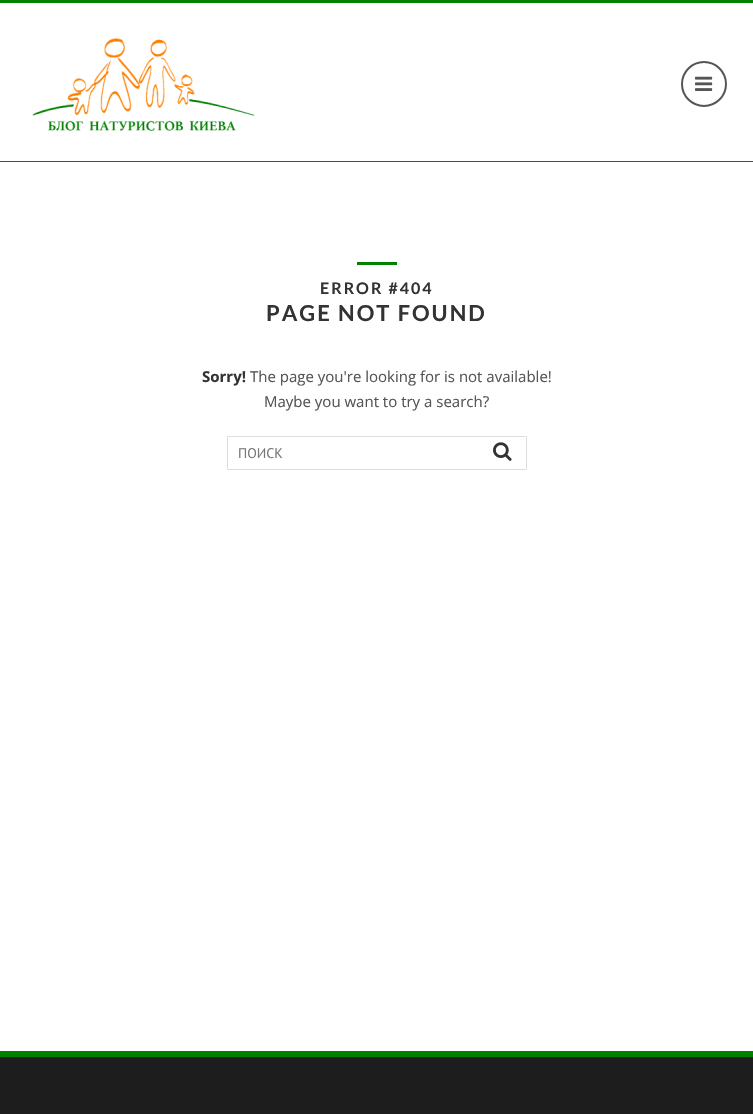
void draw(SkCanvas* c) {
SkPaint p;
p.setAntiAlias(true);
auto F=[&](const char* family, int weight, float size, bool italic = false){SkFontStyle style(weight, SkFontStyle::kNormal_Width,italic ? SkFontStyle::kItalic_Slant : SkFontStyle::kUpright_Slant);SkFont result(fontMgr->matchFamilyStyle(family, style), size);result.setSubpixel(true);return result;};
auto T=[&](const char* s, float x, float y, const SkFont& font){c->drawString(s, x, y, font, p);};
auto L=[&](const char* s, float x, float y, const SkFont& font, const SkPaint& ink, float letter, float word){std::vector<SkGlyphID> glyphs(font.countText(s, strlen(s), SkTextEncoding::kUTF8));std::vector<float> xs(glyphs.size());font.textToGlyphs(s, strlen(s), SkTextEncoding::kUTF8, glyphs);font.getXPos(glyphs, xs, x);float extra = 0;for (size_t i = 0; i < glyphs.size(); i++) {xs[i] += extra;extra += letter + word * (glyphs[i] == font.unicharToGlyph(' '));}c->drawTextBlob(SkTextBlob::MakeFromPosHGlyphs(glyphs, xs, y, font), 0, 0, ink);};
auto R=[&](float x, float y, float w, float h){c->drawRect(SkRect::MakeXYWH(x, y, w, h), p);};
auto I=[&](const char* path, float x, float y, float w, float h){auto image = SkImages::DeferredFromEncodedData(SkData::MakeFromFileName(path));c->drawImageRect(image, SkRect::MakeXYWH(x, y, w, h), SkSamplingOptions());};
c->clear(0xffffffff);
p.setColor(0xff008200);
R(0,0,753,3);
R(0,161,753,1);
I("1.png",32,38,223,93);
p.setStroke(true);
p.setStrokeWidth(2);
p.setColor(0xff555555);
c->drawCircle(704,84,22,p);
I("2.png",695,76,18,15);
p.setStroke(false);
p.setColor(0xff008200);
R(357,262,40,3);
auto f1 = F("Lato",700,16);
p.setColor(0xff333333);
L("ERROR #404",320,294,f1,p,2,0);
auto f2 = F("Lato",700,22);
L("PAGE NOT FOUND",266,321,f2,p,2,0);
auto f3 = F("Open Sans",700,15);
T("Sorry!",202,382,f3);
auto f4 = F("Open Sans",400,15);
p.setColor(0xff555555);
T("The page you're looking for is not available!",250,382,f4);
T("Maybe you want to try a search?",264,407,f4);
p.setStroke(true);
p.setStrokeWidth(1);
p.setColor(0xffdddddd);
c->drawRoundRect(SkRect::MakeXYWH(227.5,436.5,299,33),.5,.5,p);
auto f5 = F("PT Sans",400,14);
p.setStroke(false);
p.setColor(0xff777777);
T("ПОИСК",238,458,f5);
I("3.png",493,442,19,19);
p.setColor(0xff1d1d1d);
R(0,1057,753,57);
p.setColor(0xff008200);
R(0,1051,753,6);
}
